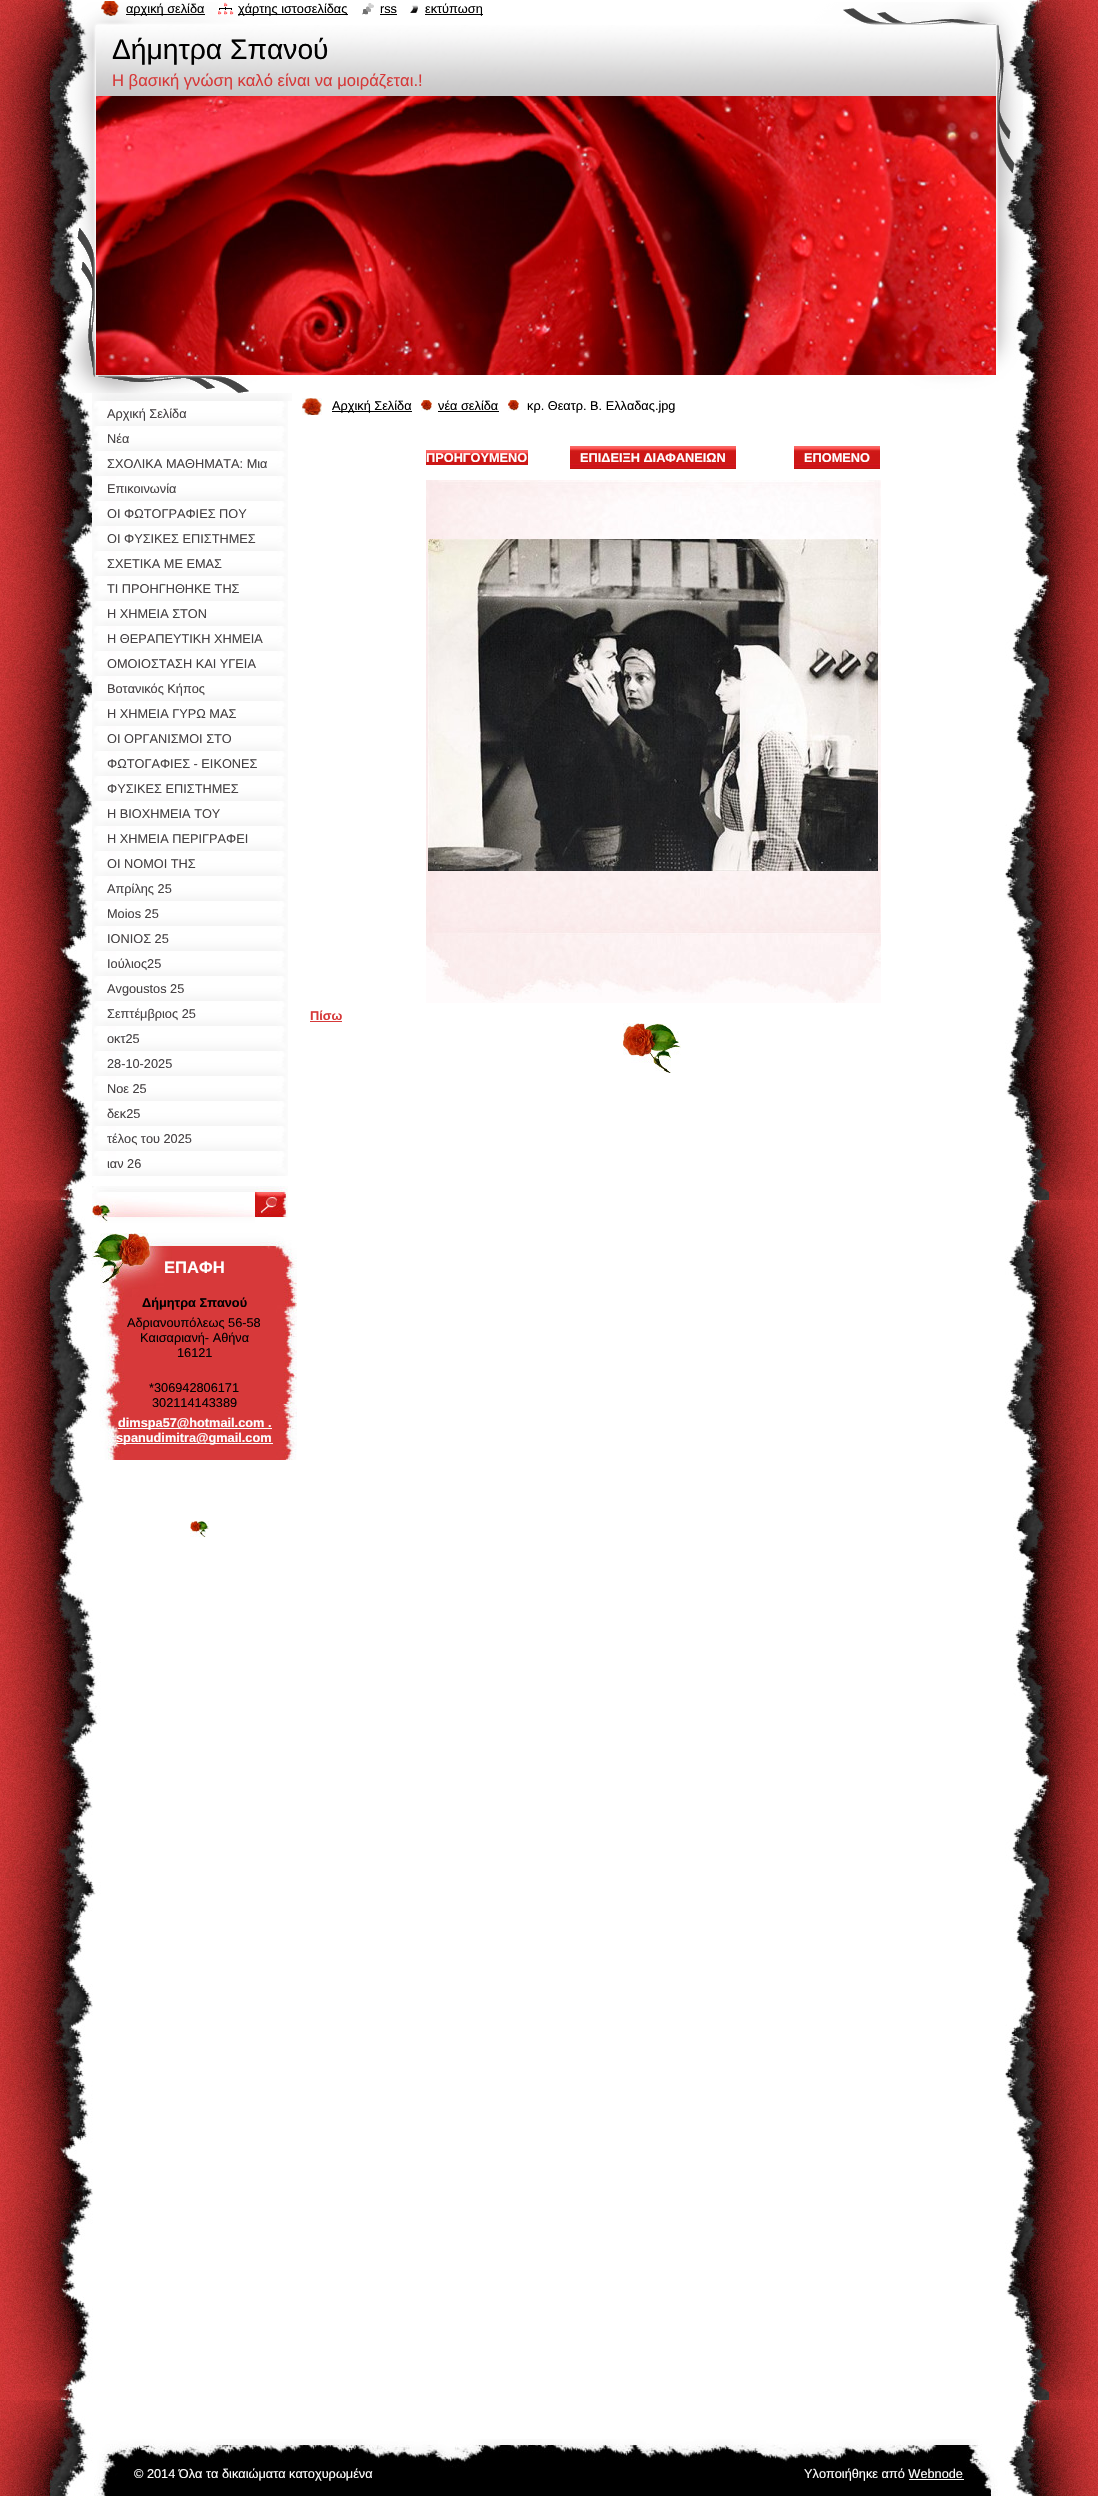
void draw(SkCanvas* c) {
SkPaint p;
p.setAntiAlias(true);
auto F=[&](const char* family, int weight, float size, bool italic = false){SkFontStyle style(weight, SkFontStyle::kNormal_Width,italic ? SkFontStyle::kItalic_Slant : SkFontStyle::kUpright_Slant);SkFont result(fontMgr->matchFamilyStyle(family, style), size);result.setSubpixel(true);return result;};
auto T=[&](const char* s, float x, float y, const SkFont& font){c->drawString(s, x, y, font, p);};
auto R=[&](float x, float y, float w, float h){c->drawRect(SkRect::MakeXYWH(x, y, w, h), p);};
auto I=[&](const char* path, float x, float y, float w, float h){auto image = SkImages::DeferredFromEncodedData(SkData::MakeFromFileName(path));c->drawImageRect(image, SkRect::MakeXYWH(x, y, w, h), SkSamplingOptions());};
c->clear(0xffffffff);
I("1.png",0,0,1098,2496);
I("6.png",67,2,956,391);
I("2.png",101,1,18,15);
p.setColor(0xff000000);
R(126,14,79,1);
auto f1 = F("Liberation Sans",400,12.75);
T("αρχική σελίδα",126,13,f1);
I("3.png",218,2,16,13);
R(238,14,110,1);
T("χάρτης ιστοσελίδας",238,13,f1);
I("4.png",362,3,12,12);
T("rss",380,13,f1);
R(380,14,17,1);
I("5.png",410,5,8,8);
R(425,14,58,1);
T("εκτύπωση",425,13,f1);
auto f2 = F("Liberation Sans",400,28.25);
T("Δήμητρα Σπανού",112,59,f2);
auto f3 = F("Liberation Sans",400,16.6);
p.setColor(0xffd63939);
T("Η βασική γνώση καλό είναι να μοιράζεται.!",112,86,f3);
I("7.png",96,96,900,279);
I("8.png",92,393,200,8);
I("9.png",92,401,196,25);
p.setColor(0xff454143);
T("Αρχική Σελίδα",107,418,f1);
I("9.png",92,426,196,25);
T("Νέα",107,443,f1);
I("9.png",92,451,196,25);
T("ΣΧΟΛΙΚΑ ΜΑΘΗΜΑΤΑ: Μια",107,468,f1);
I("9.png",92,476,196,25);
T("Επικοινωνία",107,493,f1);
I("9.png",92,501,196,25);
T("ΟΙ ΦΩΤΟΓΡΑΦΙΕΣ ΠΟΥ",107,518,f1);
I("9.png",92,526,196,25);
T("ΟΙ ΦΥΣΙΚΕΣ ΕΠΙΣΤΗΜΕΣ",107,543,f1);
I("9.png",92,551,196,25);
T("ΣΧΕΤΙΚΑ ΜΕ ΕΜΑΣ",107,568,f1);
I("9.png",92,576,196,25);
T("ΤΙ ΠΡΟΗΓΗΘΗΚΕ ΤΗΣ",107,593,f1);
I("9.png",92,601,196,25);
T("Η ΧΗΜΕΙΑ ΣΤΟΝ",107,618,f1);
I("9.png",92,626,196,25);
T("Η ΘΕΡΑΠΕΥΤΙΚΗ ΧΗΜΕΙΑ",107,643,f1);
I("9.png",92,651,196,25);
T("ΟΜΟΙΟΣΤΑΣΗ ΚΑΙ ΥΓΕΙΑ",107,668,f1);
I("9.png",92,676,196,25);
T("Βοτανικός Κήπος",107,693,f1);
I("9.png",92,701,196,25);
T("Η ΧΗΜΕΙΑ ΓΥΡΩ ΜΑΣ",107,718,f1);
I("9.png",92,726,196,25);
T("ΟΙ ΟΡΓΑΝΙΣΜΟΙ ΣΤΟ",107,743,f1);
I("9.png",92,751,196,25);
T("ΦΩΤΟΓΑΦΙΕΣ - ΕΙΚΟΝΕΣ",107,768,f1);
I("9.png",92,776,196,25);
T("ΦΥΣΙΚΕΣ ΕΠΙΣΤΗΜΕΣ",107,793,f1);
I("9.png",92,801,196,25);
T("Η ΒΙΟΧΗΜΕΙΑ ΤΟΥ",107,818,f1);
I("9.png",92,826,196,25);
T("Η ΧΗΜΕΙΑ ΠΕΡΙΓΡΑΦΕΙ",107,843,f1);
I("9.png",92,851,196,25);
T("ΟΙ ΝΟΜΟΙ ΤΗΣ",107,868,f1);
I("9.png",92,876,196,25);
T("Απρίλης 25",107,893,f1);
I("9.png",92,901,196,25);
T("Moios 25",107,918,f1);
I("9.png",92,926,196,25);
T("ΙΟΝΙΟΣ 25",107,943,f1);
I("9.png",92,951,196,25);
T("Ιούλιος25",107,968,f1);
I("9.png",92,976,196,25);
T("Avgoustos 25",107,993,f1);
I("9.png",92,1001,196,25);
T("Σεπτέμβριος 25",107,1018,f1);
I("9.png",92,1026,196,25);
T("οκτ25",107,1043,f1);
I("9.png",92,1051,196,25);
T("28-10-2025",107,1068,f1);
I("9.png",92,1076,196,25);
T("Νοε 25",107,1093,f1);
I("9.png",92,1101,196,25);
T("δεκ25",107,1118,f1);
I("9.png",92,1126,196,25);
T("τέλος του 2025",107,1143,f1);
I("9.png",92,1151,196,25);
T("ιαν 26",107,1168,f1);
I("10.png",92,1186,163,37);
I("11.png",255,1186,33,32);
I("12.png",92,1233,205,227);
auto f4 = F("Liberation Sans",700,16.6);
p.setColor(0xffffffff);
T("ΕΠΑΦΗ",164,1273,f4);
auto f5 = F("Liberation Sans",700,12.75);
p.setColor(0xff000000);
T("Δήμητρα Σπανού",142,1307,f5);
T("Αδριανουπόλεως 56-58",127,1327,f1);
T("Καισαριανή- Αθήνα",140,1342,f1);
T("16121",177,1357,f1);
T("*306942806171",149,1392,f1);
T("302114143389",152,1407,f1);
p.setColor(0xffffffff);
R(118,1428,154,1);
T("dimspa57@hotmail.com .",118,1427,f5);
R(116,1443,157,1);
T("spanudimitra@gmail.com",116,1442,f5);
I("13.png",190,1521,19,16);
I("14.png",302,398,20,17);
p.setColor(0xff000000);
R(332,411,80,1);
T("Αρχική Σελίδα",332,410,f1);
I("15.png",421,400,11,11);
T("νέα σελίδα",438,410,f1);
R(438,411,61,1);
I("15.png",508,400,11,11);
T("κρ. Θεατρ. Β. Ελλαδας.jpg",527,410,f1);
I("16.png",623,1023,58,50);
I("17.png",426,450,102,15);
p.setColor(0xffffffff);
T("ΠΡΟΗΓΟΥΜΕΝΟ",426,462,f5);
I("18.png",570,446,166,23);
T("ΕΠΙΔΕΙΞΗ ΔΙΑΦΑΝΕΙΩΝ",580,462,f5);
I("19.png",794,446,86,23);
T("ΕΠΟΜΕΝΟ",804,462,f5);
I("20.png",426,480,455,523);
I("21.png",428,539,450,332);
p.setColor(0xffd63939);
T("Πίσω",310,1020,f5);
R(310,1021,32,1);
I("22.png",94,2439,904,57);
p.setColor(0xffffffff);
T("© 2014 Όλα τα δικαιώματα κατοχυρωμένα",134,2478,f1);
T("Υλοποιήθηκε από Webnode",804,2478,f1);
R(909,2479,55,1);
}
